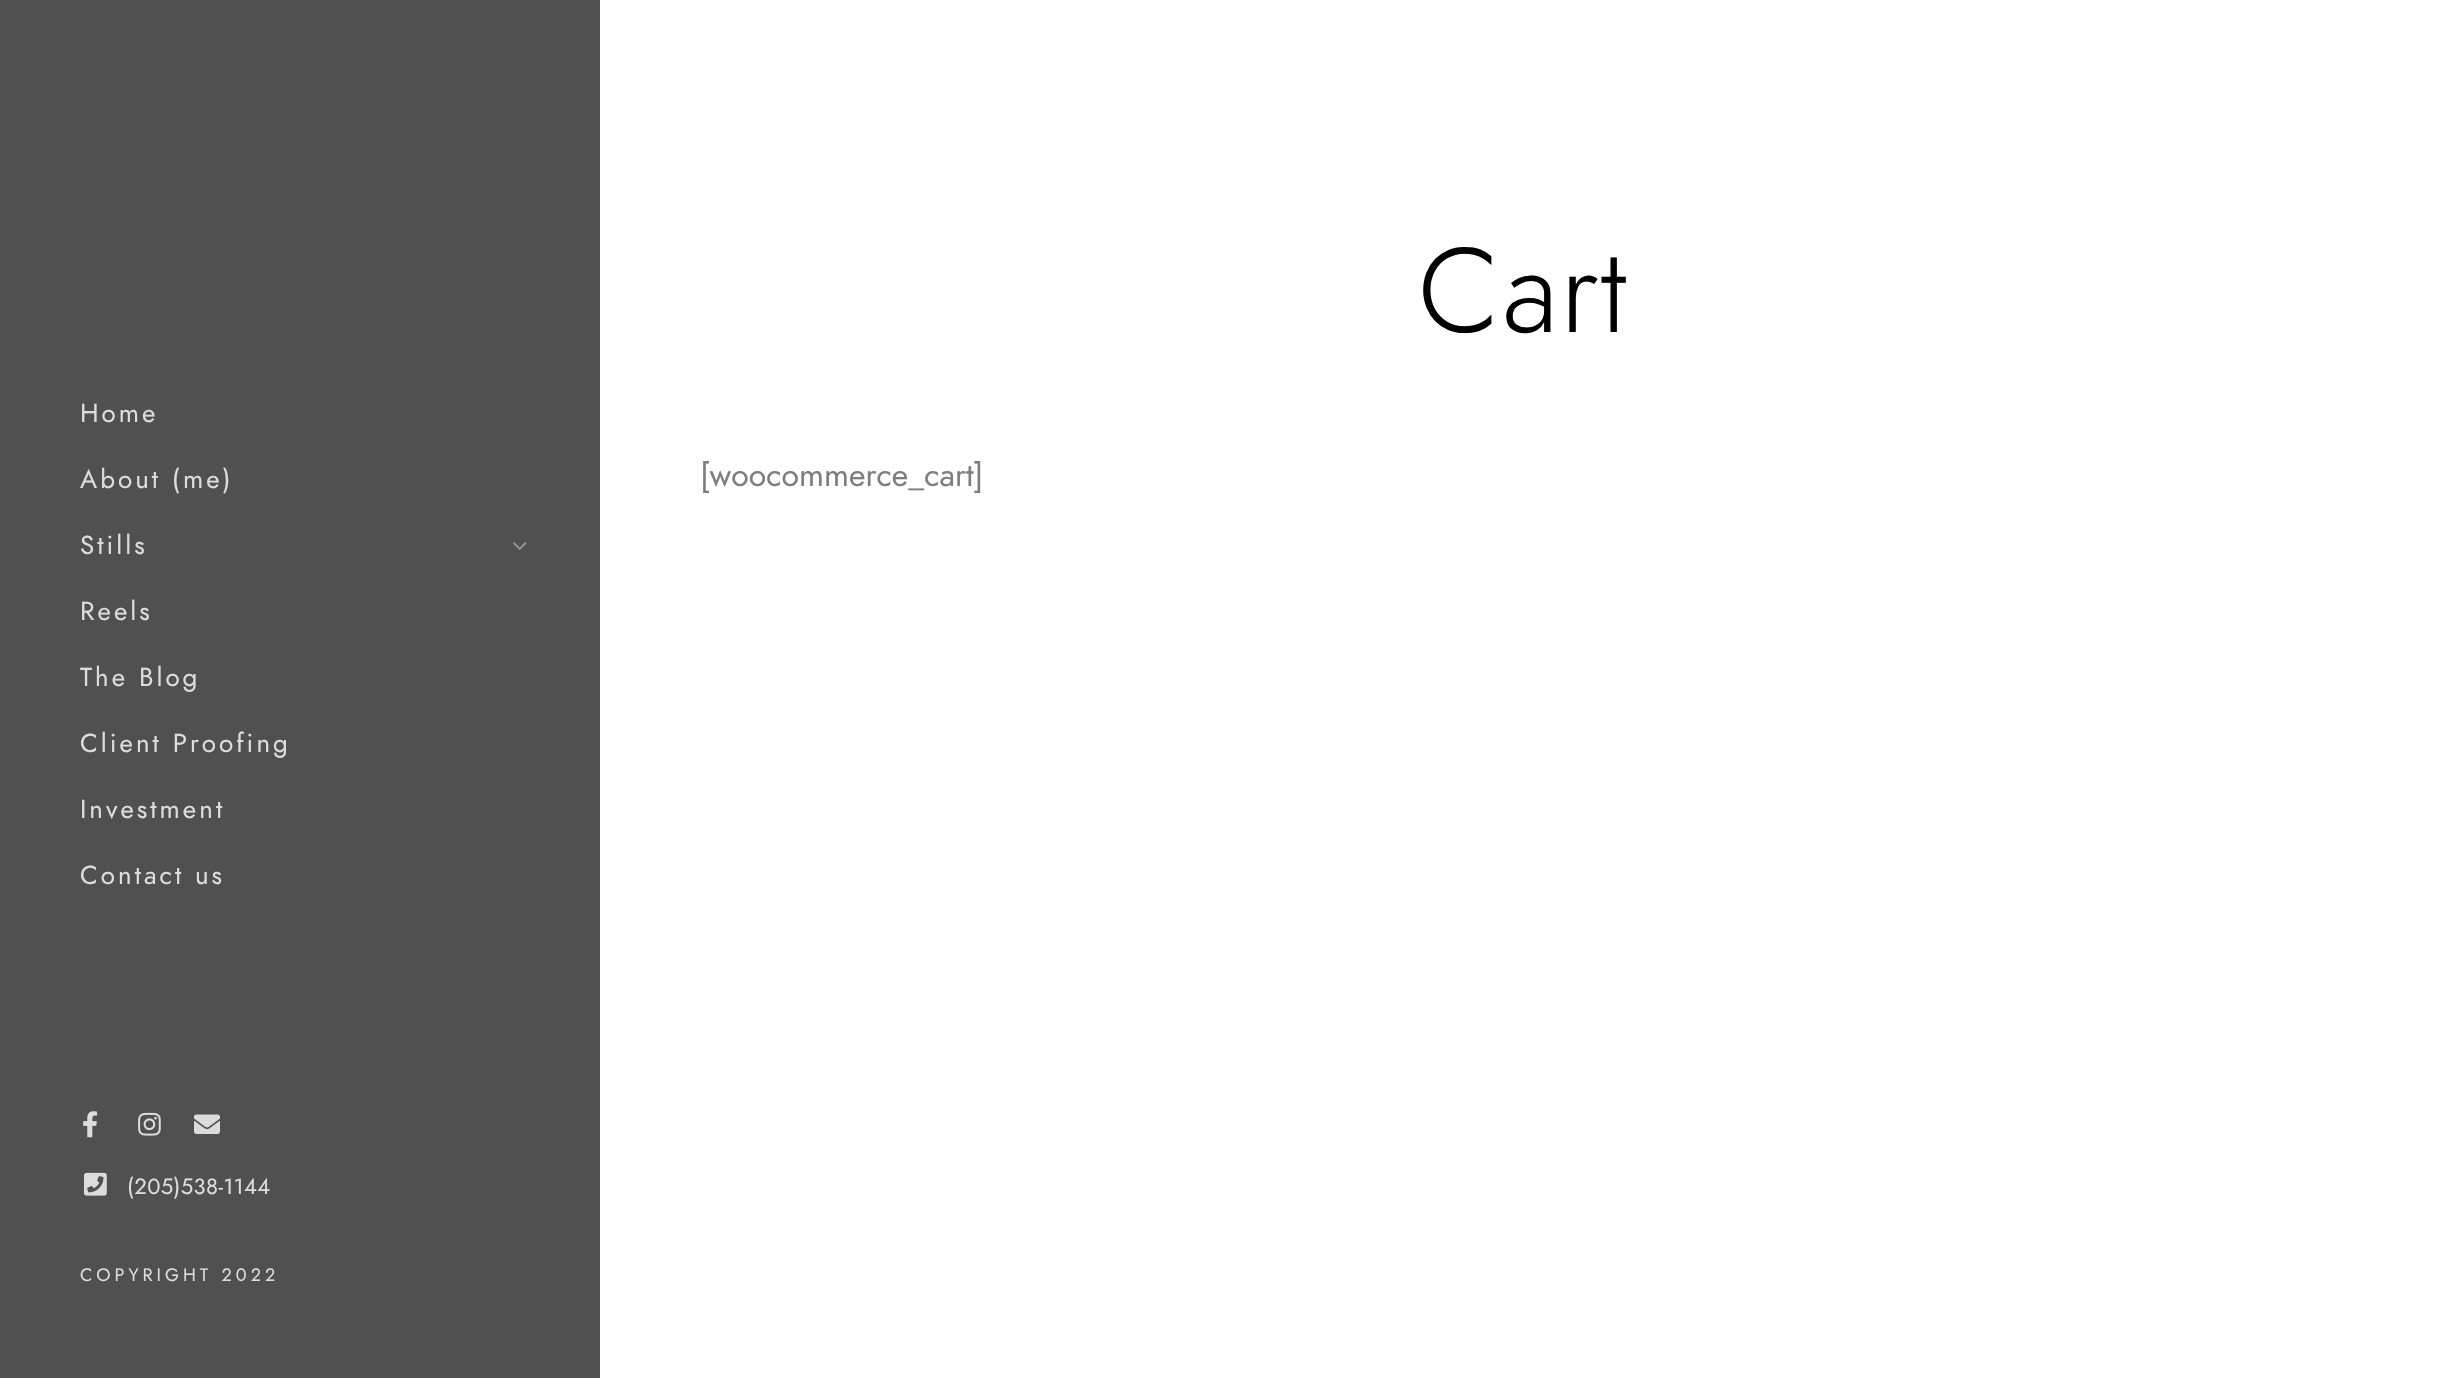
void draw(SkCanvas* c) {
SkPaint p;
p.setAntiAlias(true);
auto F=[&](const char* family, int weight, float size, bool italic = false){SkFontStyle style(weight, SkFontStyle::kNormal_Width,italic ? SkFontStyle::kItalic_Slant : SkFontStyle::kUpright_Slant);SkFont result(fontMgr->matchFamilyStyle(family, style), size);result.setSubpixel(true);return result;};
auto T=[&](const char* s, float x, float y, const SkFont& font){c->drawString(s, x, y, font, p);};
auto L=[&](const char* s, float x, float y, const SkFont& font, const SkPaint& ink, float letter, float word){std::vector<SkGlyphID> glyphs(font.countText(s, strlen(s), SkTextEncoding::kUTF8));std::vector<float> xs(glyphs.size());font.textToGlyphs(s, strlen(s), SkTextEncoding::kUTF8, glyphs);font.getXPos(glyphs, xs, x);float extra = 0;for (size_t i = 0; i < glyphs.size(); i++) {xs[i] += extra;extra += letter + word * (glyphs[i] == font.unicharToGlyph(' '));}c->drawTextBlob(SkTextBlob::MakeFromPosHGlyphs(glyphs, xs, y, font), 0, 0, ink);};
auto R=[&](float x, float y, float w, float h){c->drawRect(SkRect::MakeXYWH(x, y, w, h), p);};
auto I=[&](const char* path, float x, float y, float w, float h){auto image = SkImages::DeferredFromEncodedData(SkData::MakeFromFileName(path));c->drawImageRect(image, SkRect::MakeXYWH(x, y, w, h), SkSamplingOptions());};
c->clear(0xffffffff);
auto f1 = F("Jost",300,120);
p.setColor(0xff000000);
L("Cart",1418,332,f1,p,2,0);
auto f2 = F("Jost",400,32);
p.setColor(0xff7e7e7e);
T("[woocommerce_cart]",700,486,f2);
p.setColor(0xff505050);
R(0,0,600,1378);
auto f3 = F("Jost",400,26);
p.setColor(0xffdcdcdc);
L("Home",80,422,f3,p,3,0);
L("About (me)",80,488,f3,p,3,0);
L("Stills",80,554,f3,p,3,0);
I("1.png",513,542,14,8);
L("Reels",80,620,f3,p,3,0);
L("The Blog",80,686,f3,p,3,0);
L("Client Proofing",80,752,f3,p,3,0);
L("Investment",80,818,f3,p,3,0);
L("Contact us",80,884,f3,p,3,0);
I("2.png",83,1111,15,27);
I("3.png",138,1112,23,24);
I("4.png",194,1114,26,20);
I("5.png",84,1172,23,24);
auto f4 = F("Jost",400,22);
L("(205)538-1144",127,1194,f4,p,.4,0);
auto f5 = F("Jost",400,18);
L("COPYRIGHT 2022",80,1281,f5,p,4,0);
}
